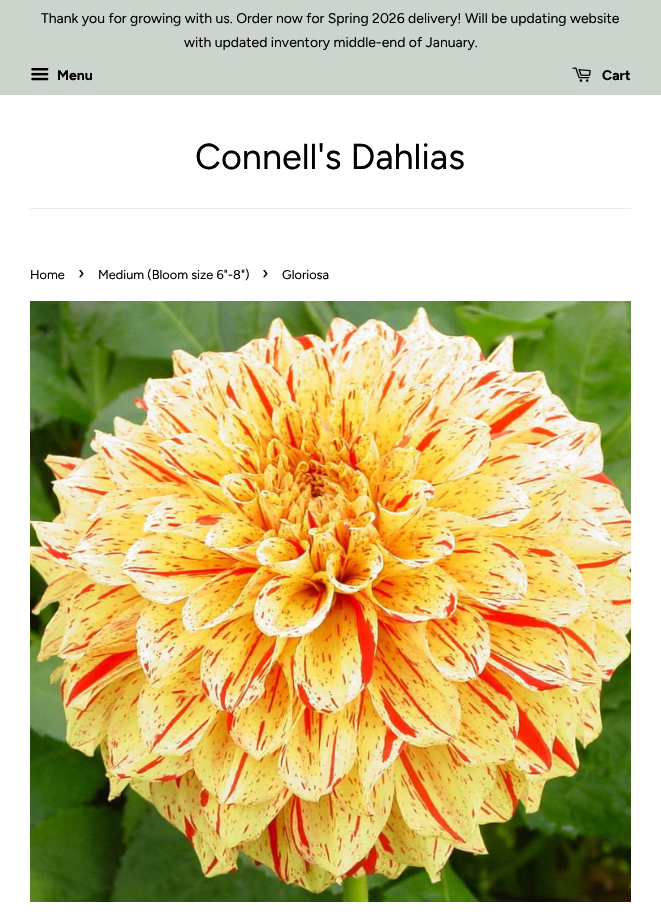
void draw(SkCanvas* c) {
SkPaint p;
p.setAntiAlias(true);
auto F=[&](const char* family, int weight, float size, bool italic = false){SkFontStyle style(weight, SkFontStyle::kNormal_Width,italic ? SkFontStyle::kItalic_Slant : SkFontStyle::kUpright_Slant);SkFont result(fontMgr->matchFamilyStyle(family, style), size);result.setSubpixel(true);return result;};
auto T=[&](const char* s, float x, float y, const SkFont& font){c->drawString(s, x, y, font, p);};
auto R=[&](float x, float y, float w, float h){c->drawRect(SkRect::MakeXYWH(x, y, w, h), p);};
auto I=[&](const char* path, float x, float y, float w, float h){auto image = SkImages::DeferredFromEncodedData(SkData::MakeFromFileName(path));c->drawImageRect(image, SkRect::MakeXYWH(x, y, w, h), SkSamplingOptions());};
c->clear(0xffffffff);
p.setColor(0xffcbd5cc);
R(0,0,661,95);
auto f1 = F("Figtree",400,14);
p.setColor(0xff000000);
T("Thank you for growing with us. Order now for Spring 2026 delivery! Will be updating website",41,23,f1);
T("with updated inventory middle-end of January.",184,47,f1);
I("1.png",31,68,18,13);
auto f2 = F("Figtree",700,14);
T("Menu",57,80,f2);
I("2.png",572,67,19,15);
T("Cart",602,80,f2);
p.setColor(0xffebebeb);
R(30,208,601,1);
auto f3 = F("Figtree",400,36);
p.setColor(0xff000000);
T("Connell's Dahlias",195,169,f3);
auto f4 = F("Figtree",400,12.75);
T("Home",30,279,f4);
auto f5 = F("Figtree",400,18);
T("›",78,279,f5);
T("Medium (Bloom size 6\"-8\")",98,279,f4);
T("›",262,279,f5);
T("Gloriosa",282,279,f4);
I("3.png",30,301,601,601);
}
